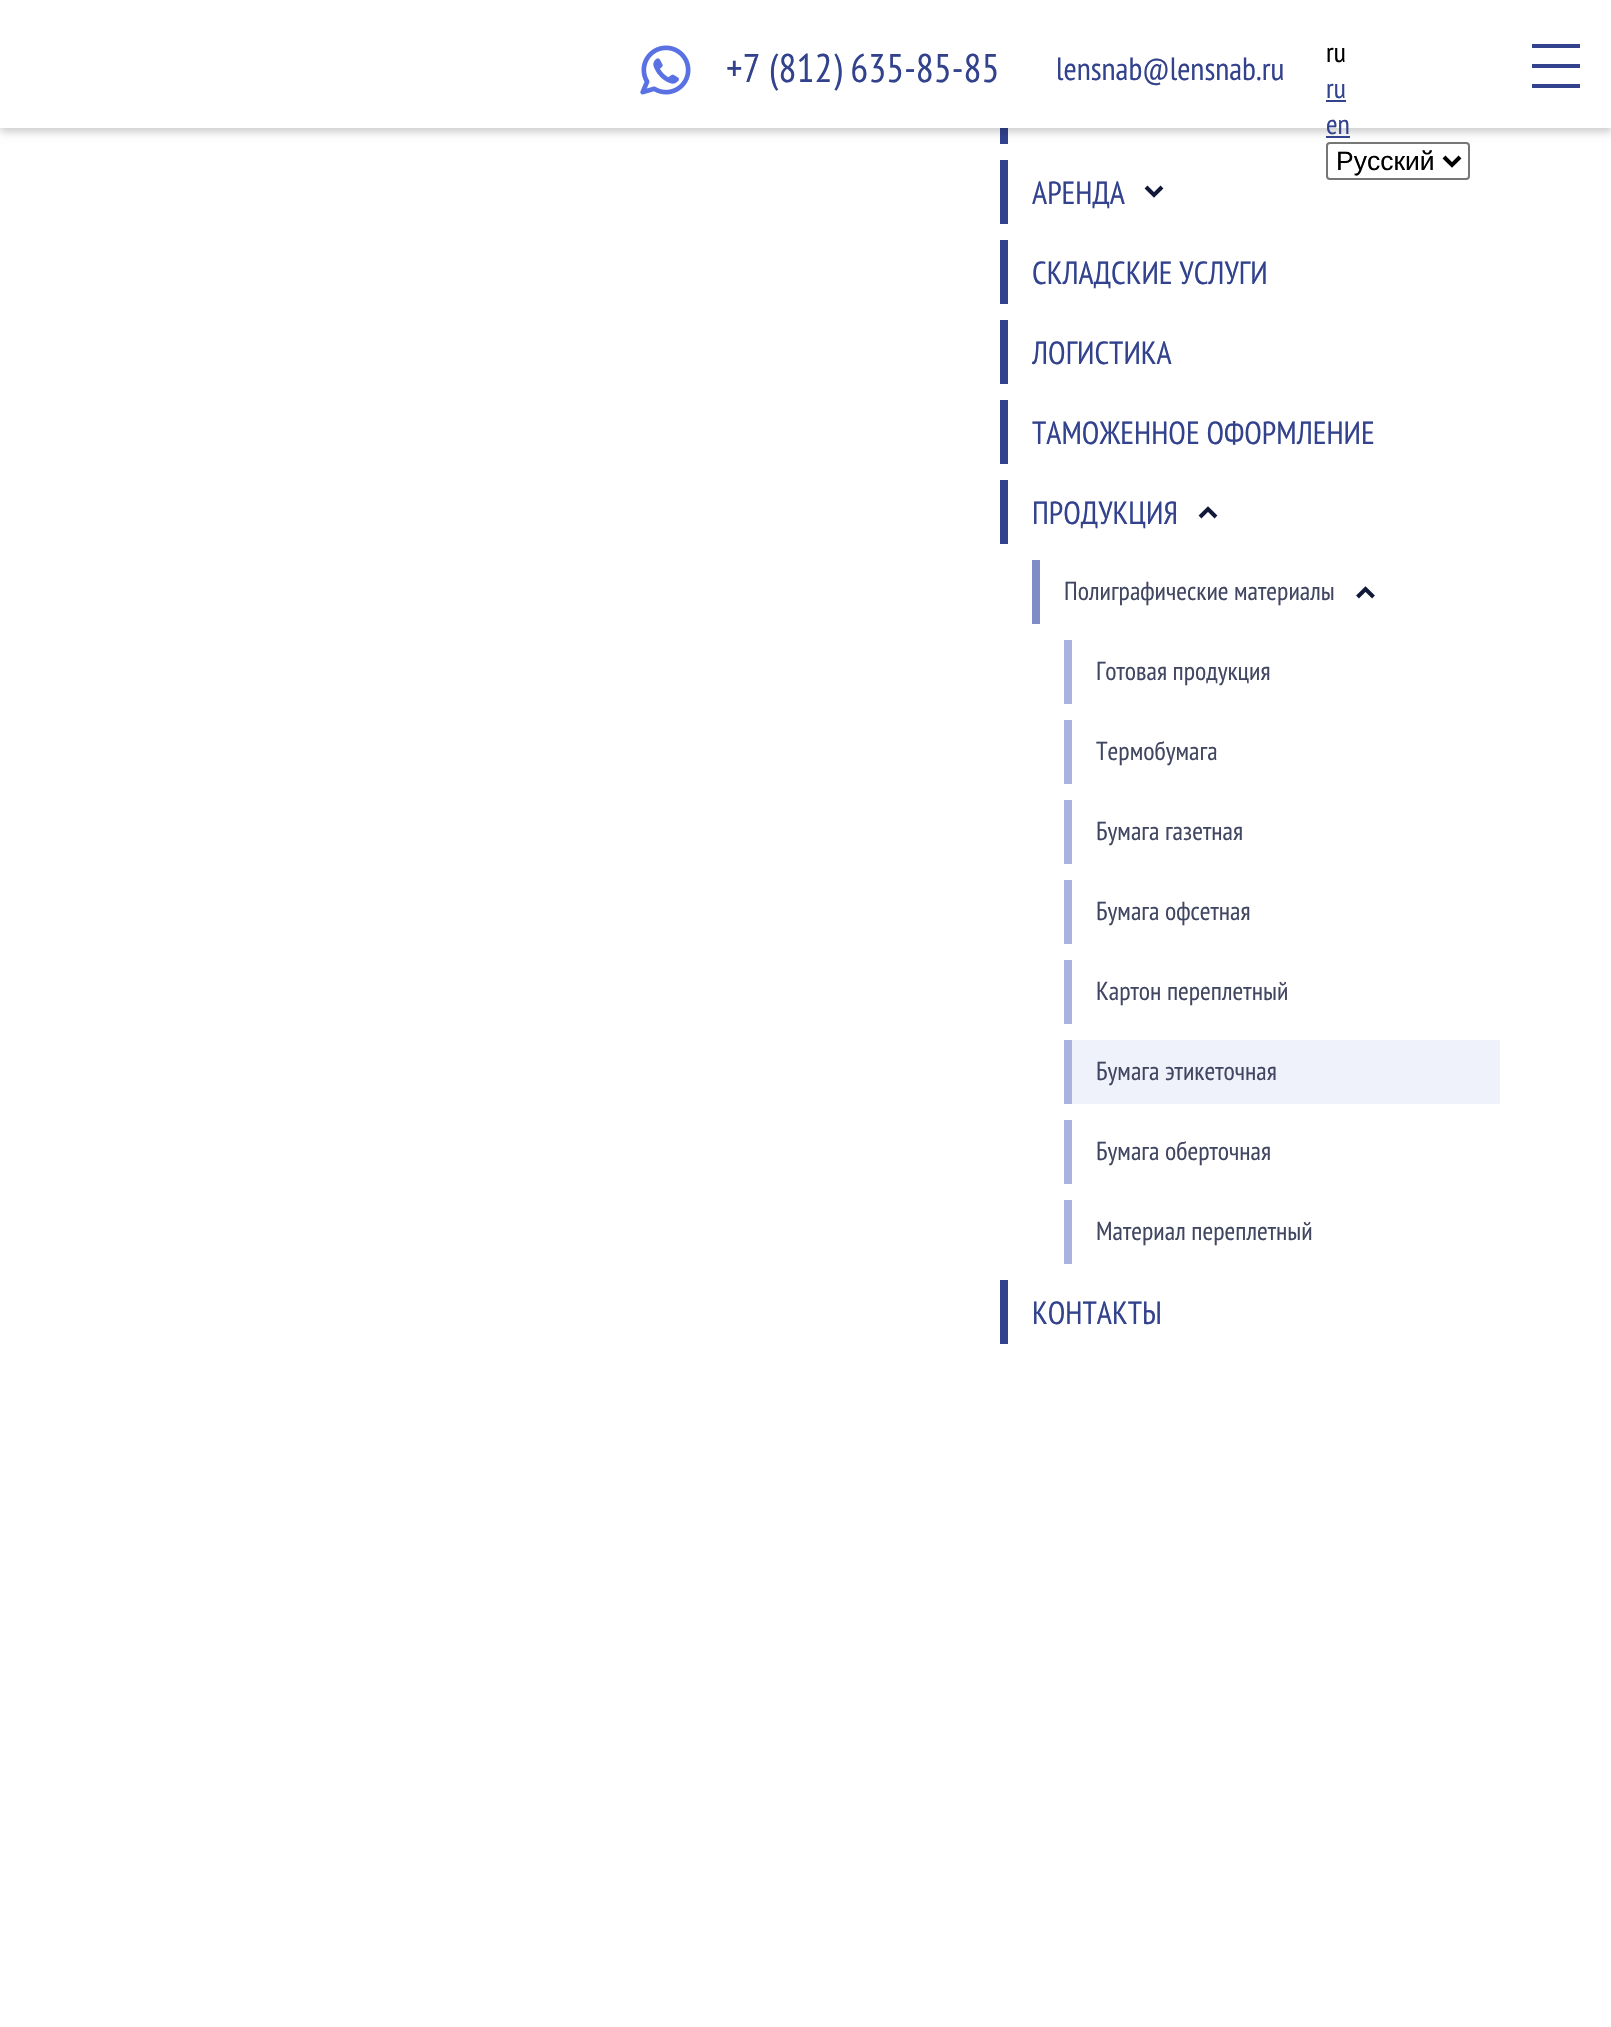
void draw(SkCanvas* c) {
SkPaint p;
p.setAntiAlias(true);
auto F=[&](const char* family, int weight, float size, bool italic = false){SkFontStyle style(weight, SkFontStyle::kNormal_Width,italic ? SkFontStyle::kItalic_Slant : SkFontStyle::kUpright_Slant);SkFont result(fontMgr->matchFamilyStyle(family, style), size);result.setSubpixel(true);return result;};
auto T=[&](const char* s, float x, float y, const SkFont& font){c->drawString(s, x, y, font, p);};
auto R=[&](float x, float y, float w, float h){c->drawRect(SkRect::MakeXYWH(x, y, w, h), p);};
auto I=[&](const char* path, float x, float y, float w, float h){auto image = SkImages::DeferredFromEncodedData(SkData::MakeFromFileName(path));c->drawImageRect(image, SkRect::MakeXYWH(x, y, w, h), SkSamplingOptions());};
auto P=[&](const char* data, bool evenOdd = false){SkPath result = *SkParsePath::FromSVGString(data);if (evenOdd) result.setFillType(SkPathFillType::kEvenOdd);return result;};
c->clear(0xffffffff);
p.setColor(0xff32428d);
R(1000,128,8,16);
p.setColor(0x33000000);
p.setMaskFilter(SkMaskFilter::MakeBlur(kNormal_SkBlurStyle, 4));
c->drawRect(SkRect::MakeXYWH(0,4,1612,128),p);
p.setMaskFilter(nullptr);
p.setColor(0xffffffff);
R(0,0,1611,128);
I("1.png",640,45,51,50);
auto f1 = F("PT Sans Narrow",400,40);
p.setColor(0xff32428d);
T("+7 (812) 635-85-85",726,82,f1);
auto f2 = F("PT Sans Narrow",400,32);
T("lensnab@lensnab.ru",1056,80,f2);
auto f3 = F("PT Sans Narrow",400,28);
p.setColor(0xff000000);
T("ru",1326,62,f3);
p.setColor(0xff32428d);
T("ru",1326,98,f3);
R(1326,100,20,2);
T("en",1326,134,f3);
R(1326,136,24,2);
p.setStroke(true);
p.setStrokeWidth(2);
p.setColor(0xff767676);
c->drawRoundRect(SkRect::MakeXYWH(1327,143,142,36),3,3,p);
p.setStrokeWidth(4);
p.setColor(0xff000000);
c->drawPath(P("M1444 157l8 8l8-8"),p);
auto f4 = F("Liberation Sans",400,26.5);
p.setStroke(false);
T("Русский",1336,170,f4);
p.setColor(0xff32428d);
R(1532,44,48,4);
R(1532,64,48,4);
R(1532,84,48,4);
R(1000,160,8,64);
T("АРЕНДА",1032,204,f2);
p.setStroke(true);
p.setColor(0xff111839);
c->drawPath(P("M1146 187l8 8l8-8"),p);
p.setStroke(false);
p.setColor(0xff32428d);
R(1000,240,8,64);
T("СКЛАДСКИЕ УСЛУГИ",1032,284,f2);
R(1000,320,8,64);
T("ЛОГИСТИКА",1032,364,f2);
R(1000,400,8,64);
T("ТАМОЖЕННОЕ ОФОРМЛЕНИЕ",1032,444,f2);
R(1000,480,8,64);
T("ПРОДУКЦИЯ",1032,524,f2);
p.setStroke(true);
p.setColor(0xff111839);
c->drawPath(P("M1216 517l-8-8l-8 8"),p);
p.setStroke(false);
p.setColor(0xff808cc6);
R(1032,560,8,64);
auto f5 = F("PT Sans Narrow",400,26);
p.setColor(0xff414661);
T("Полиграфические материалы",1064,600,f5);
p.setStroke(true);
p.setColor(0xff111839);
c->drawPath(P("M1373.5 597l-8-8l-8 8"),p);
p.setStroke(false);
p.setColor(0xffaab3df);
R(1064,640,8,64);
p.setColor(0xff414661);
T("Готовая продукция",1096,680,f5);
p.setColor(0xffaab3df);
R(1064,720,8,64);
p.setColor(0xff414661);
T("Термобумага",1096,760,f5);
p.setColor(0xffaab3df);
R(1064,800,8,64);
p.setColor(0xff414661);
T("Бумага газетная",1096,840,f5);
p.setColor(0xffaab3df);
R(1064,880,8,64);
p.setColor(0xff414661);
T("Бумага офсетная",1096,920,f5);
p.setColor(0xffaab3df);
R(1064,960,8,64);
p.setColor(0xff414661);
T("Картон переплетный",1096,1000,f5);
p.setColor(0xffeff1fb);
R(1072,1040,428,64);
p.setColor(0xffaab3df);
R(1064,1040,8,64);
p.setColor(0xff414661);
T("Бумага этикеточная",1096,1080,f5);
p.setColor(0xffaab3df);
R(1064,1120,8,64);
p.setColor(0xff414661);
T("Бумага оберточная",1096,1160,f5);
p.setColor(0xffaab3df);
R(1064,1200,8,64);
p.setColor(0xff414661);
T("Материал переплетный",1096,1240,f5);
p.setColor(0xff32428d);
R(1000,1280,8,64);
T("КОНТАКТЫ",1032,1324,f2);
}
